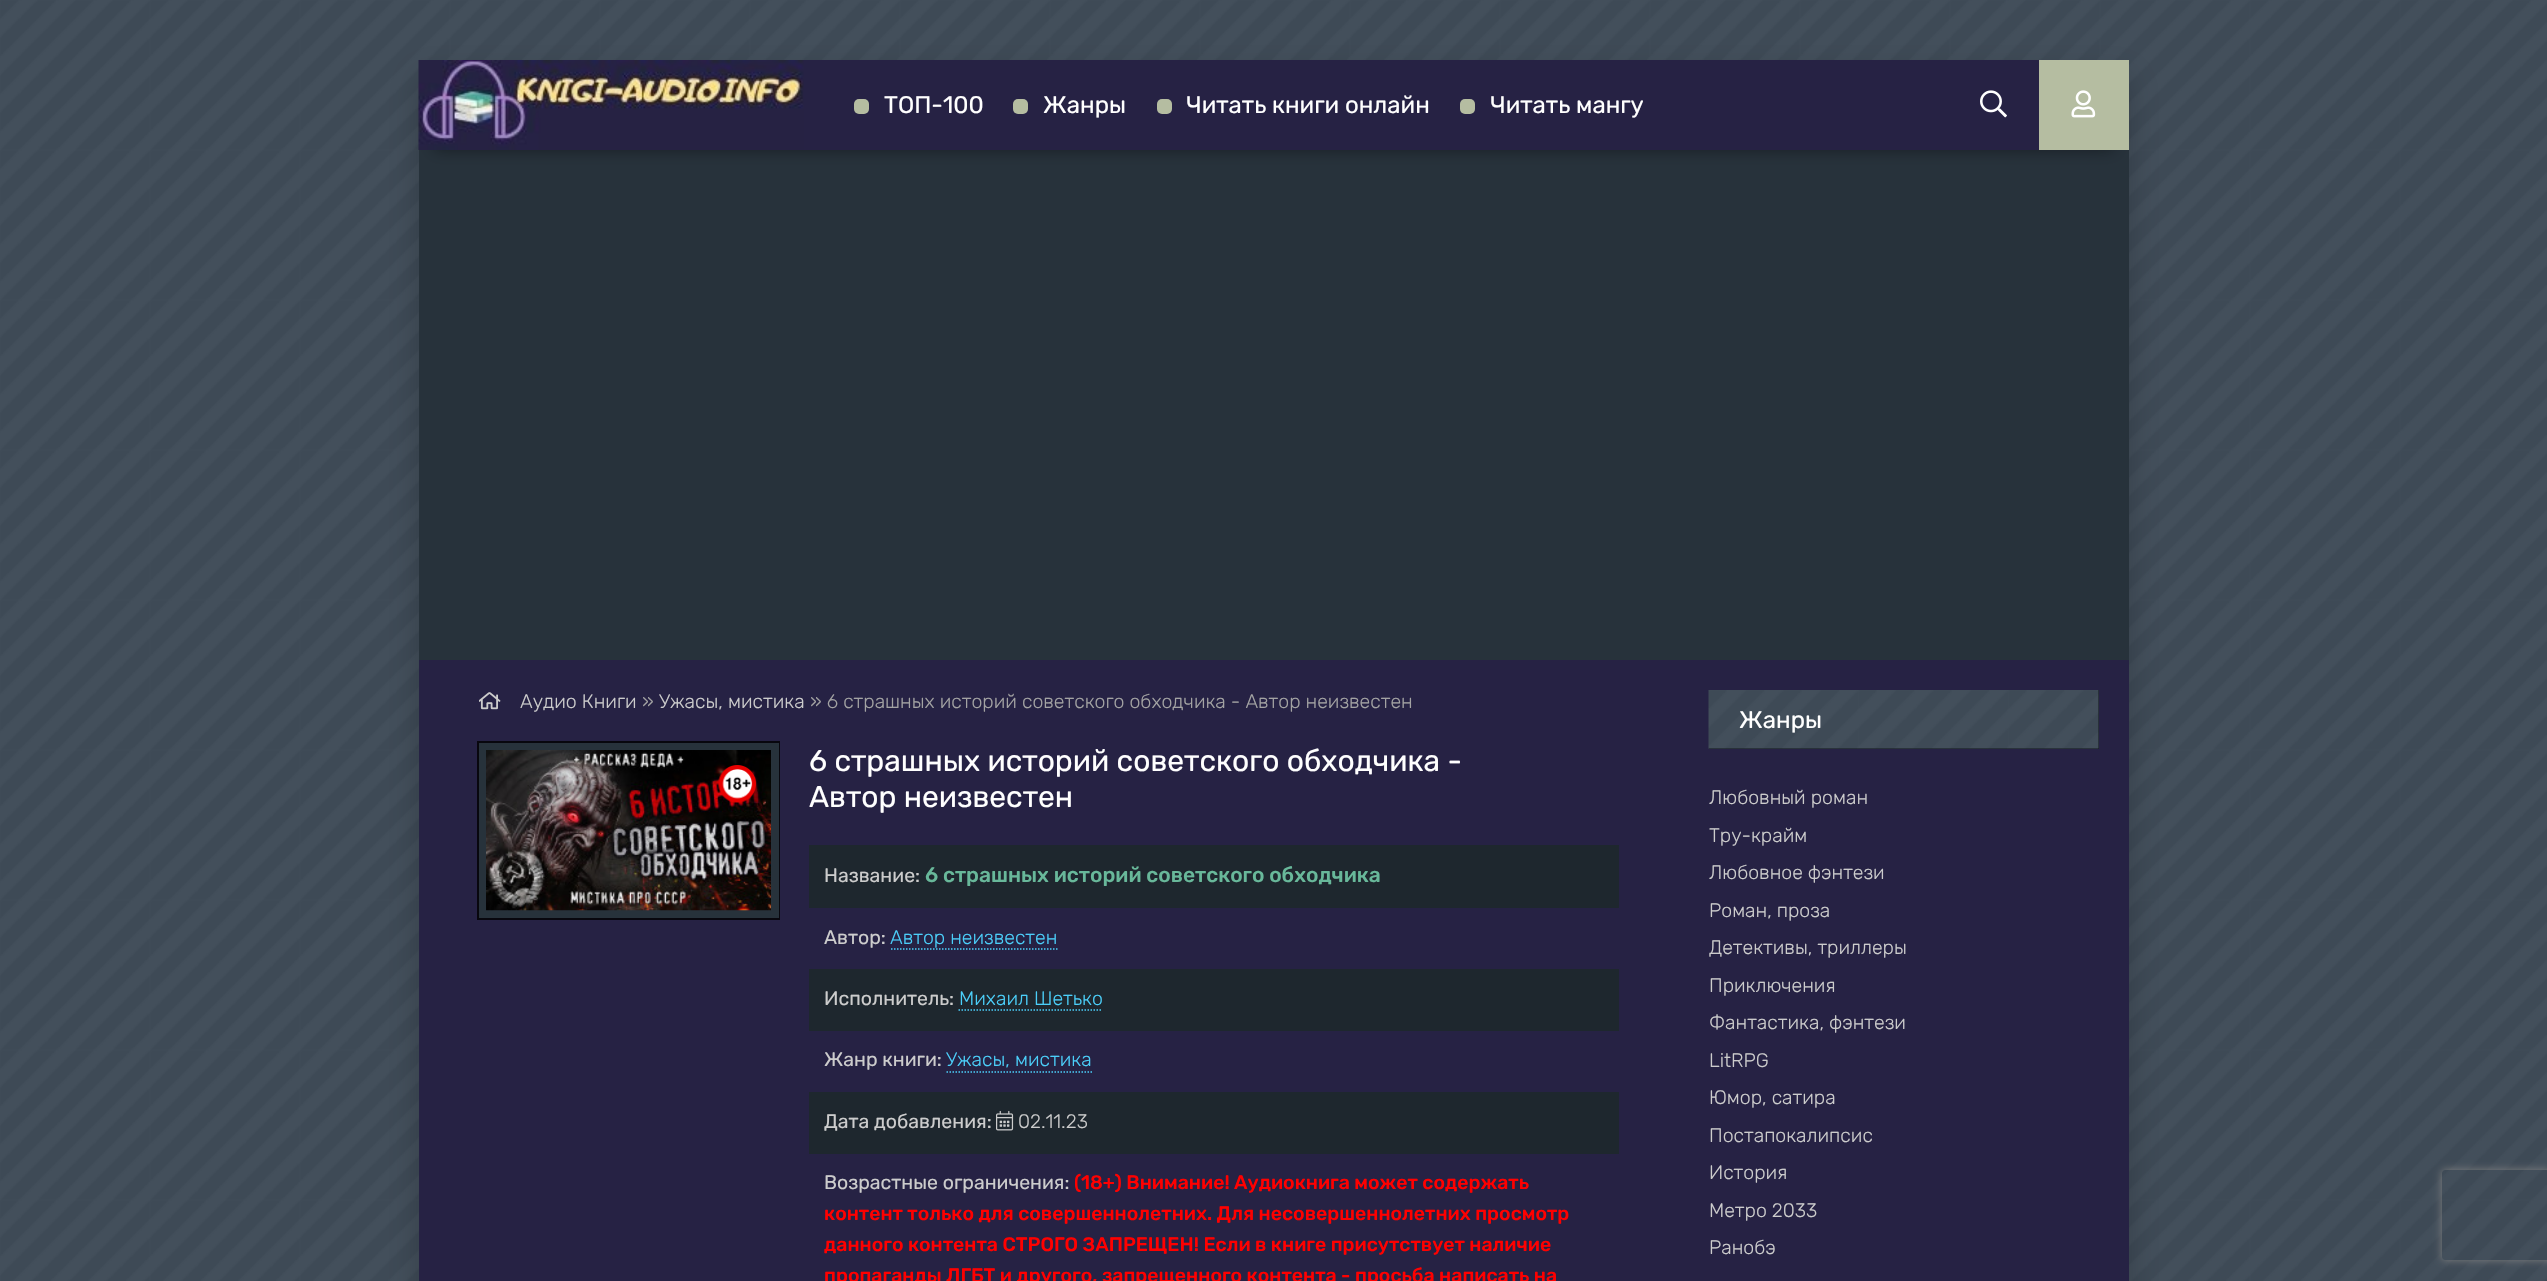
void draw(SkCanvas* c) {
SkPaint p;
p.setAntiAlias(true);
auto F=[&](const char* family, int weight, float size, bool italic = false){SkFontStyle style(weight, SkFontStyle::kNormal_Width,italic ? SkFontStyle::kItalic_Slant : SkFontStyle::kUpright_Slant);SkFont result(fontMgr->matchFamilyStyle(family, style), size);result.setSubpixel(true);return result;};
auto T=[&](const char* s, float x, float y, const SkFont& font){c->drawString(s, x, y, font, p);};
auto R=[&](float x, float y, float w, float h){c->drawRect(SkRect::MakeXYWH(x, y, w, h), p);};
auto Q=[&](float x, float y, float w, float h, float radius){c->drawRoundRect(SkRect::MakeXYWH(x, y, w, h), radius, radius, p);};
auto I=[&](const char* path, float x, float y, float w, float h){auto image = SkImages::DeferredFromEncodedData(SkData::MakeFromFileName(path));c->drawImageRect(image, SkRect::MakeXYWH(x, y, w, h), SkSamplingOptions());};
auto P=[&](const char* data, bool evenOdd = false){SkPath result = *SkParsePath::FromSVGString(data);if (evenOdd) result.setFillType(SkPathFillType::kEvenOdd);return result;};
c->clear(0xffffffff);
I("1.png",0,0,2547,1281);
p.setColor(0x33000000);
p.setMaskFilter(SkMaskFilter::MakeBlur(kNormal_SkBlurStyle, 15));
c->drawRect(SkRect::MakeXYWH(419,75,1710,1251),p);
p.setMaskFilter(nullptr);
p.setColor(0xff27323b);
R(419,150,1710,510);
p.setColor(0x66000000);
p.setMaskFilter(SkMaskFilter::MakeBlur(kNormal_SkBlurStyle, 7.5));
c->drawRect(SkRect::MakeXYWH(434,90,1680,60),p);
p.setMaskFilter(nullptr);
p.setColor(0xff262244);
R(804,60,1235,90);
I("2.png",418,60,386,90);
p.setColor(0xffb5bda1);
Q(854,99,15,15,5);
auto f1 = F("Rubik",400,24);
p.setColor(0xffffffff);
T("ТОП-100",884,113,f1);
p.setColor(0xffb5bda1);
Q(1013,99,15,15,5);
p.setColor(0xffffffff);
T("Жанры",1043,113,f1);
p.setColor(0xffb5bda1);
Q(1157,99,15,15,5);
p.setColor(0xffffffff);
T("Читать книги онлайн",1186,113,f1);
p.setColor(0xffb5bda1);
Q(1460,99,15,15,5);
p.setColor(0xffffffff);
T("Читать мангу",1490,113,f1);
I("3.png",1980,90,27,28);
p.setColor(0xffb5bda1);
R(2039,60,90,90);
I("4.png",2071,90,25,28);
p.setColor(0xff262244);
R(419,660,1710,621);
I("5.png",479,692,22,18);
auto f2 = F("Rubik",300,19.5);
p.setColor(0xffcccccc);
T("Аудио Книги",520,708,f2);
p.setColor(0xffa3a3a3);
T("»",642,708,f2);
p.setColor(0xffcccccc);
T("Ужасы, мистика",659,708,f2);
p.setColor(0xffa3a3a3);
T("» 6 страшных историй советского обходчика - Автор неизвестен",810,708,f2);
p.setStroke(true);
p.setStrokeWidth(2);
p.setColor(0xff08070e);
c->drawRect(SkRect::MakeXYWH(478,742,301,177),p);
p.setStrokeWidth(8);
p.setColor(0xff27323b);
c->drawRect(SkRect::MakeXYWH(483,747,292,167),p);
I("6.png",486,750,285,161);
I("7.png",718,765,38,38);
auto f3 = F("Rubik",400,30);
p.setStroke(false);
p.setColor(0xffffffff);
T("6 страшных историй советского обходчика -",809,771,f3);
T("Автор неизвестен",809,807,f3);
p.setColor(0xff1e272e);
R(809,845,810,63);
auto f4 = F("Rubik",400,19.5);
p.setColor(0xffcccccc);
T("Название:",824,882,f4);
auto f5 = F("Rubik",500,21);
p.setColor(0xff68b89a);
T("6 страшных историй советского обходчика",925,882,f5);
p.setColor(0xffcccccc);
T("Автор:",824,944,f4);
p.setColor(0xff4bcffa);
T("Автор неизвестен",890,944,f2);
p.setStroke(true);
p.setStrokeWidth(1.5);
p.setPathEffect(SkDashPathEffect::Make({{1.5f,1.5f}}, 0));
c->drawPath(P("M891 949h166.5"),p);
p.setPathEffect(nullptr);
p.setStroke(false);
p.setColor(0xff1e272e);
R(809,969,810,62);
p.setColor(0xffcccccc);
T("Исполнитель:",824,1005,f4);
p.setColor(0xff4bcffa);
T("Михаил Шетько",959,1005,f2);
p.setStroke(true);
p.setPathEffect(SkDashPathEffect::Make({{1.5f,1.5f}}, 0));
c->drawPath(P("M958.5 1010h144"),p);
p.setPathEffect(nullptr);
p.setStroke(false);
p.setColor(0xffcccccc);
T("Жанр книги:",824,1066,f4);
p.setColor(0xff4bcffa);
T("Ужасы, мистика",946,1066,f2);
p.setStroke(true);
p.setPathEffect(SkDashPathEffect::Make({{1.5f,1.5f}}, 0));
c->drawPath(P("M946.5 1072h145.5"),p);
p.setPathEffect(nullptr);
p.setStroke(false);
p.setColor(0xff1e272e);
R(809,1092,810,62);
p.setColor(0xffcccccc);
T("Дата добавления:",824,1128,f4);
I("8.png",996,1110,18,21);
T("02.11.23",1018,1128,f2);
T("Возрастные ограничения:",824,1189,f4);
auto f6 = F("Rubik",500,19.5);
p.setColor(0xffff0000);
T("(18+) Внимание! Аудиокнига может содержать",1074,1189,f6);
T("контент только для совершеннолетних. Для несовершеннолетних просмотр",824,1220,f6);
T("данного контента СТРОГО ЗАПРЕЩЕН! Если в книге присутствует наличие",824,1251,f6);
T("пропаганды ЛГБТ и другого, запрещенного контента - просьба написать на",824,1282,f6);
p.setColor(0xff12171b);
R(1709,690,390,59);
I("9.png",1708,690,391,59);
p.setColor(0xffffffff);
T("Жанры",1739,728,f1);
p.setColor(0xffcccccc);
T("Любовный роман",1709,804,f2);
T("Тру-крайм",1709,842,f2);
T("Любовное фэнтези",1709,879,f2);
T("Роман, проза",1709,917,f2);
T("Детективы, триллеры",1709,954,f2);
T("Приключения",1709,992,f2);
T("Фантастика, фэнтези",1709,1029,f2);
T("LitRPG",1709,1067,f2);
T("Юмор, сатира",1709,1104,f2);
T("Постапокалипсис",1709,1142,f2);
T("История",1709,1179,f2);
T("Метро 2033",1709,1217,f2);
T("Ранобэ",1709,1254,f2);
c->save();
c->clipPath(P("M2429 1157h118v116h-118zm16 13h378c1.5 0 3 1.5 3 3v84c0 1.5-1.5 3-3 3h-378c-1.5 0-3-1.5-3-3v-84c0-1.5 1.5-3 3-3z",true),true);
p.setColor(0xff808080);
p.setMaskFilter(SkMaskFilter::MakeBlur(kNormal_SkBlurStyle, 4));
c->drawRoundRect(SkRect::MakeXYWH(2442,1170,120,90),3,3,p);
p.setMaskFilter(nullptr);
c->restore();
}
